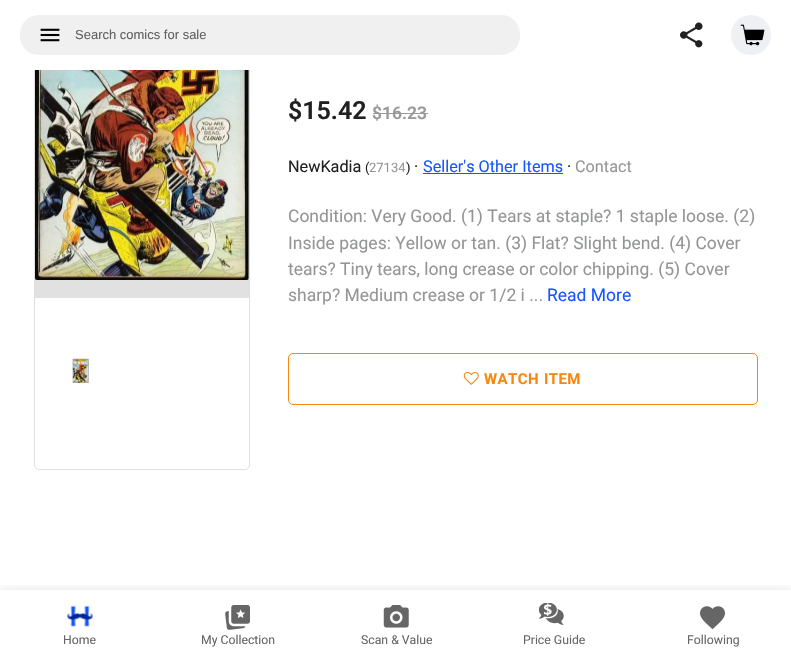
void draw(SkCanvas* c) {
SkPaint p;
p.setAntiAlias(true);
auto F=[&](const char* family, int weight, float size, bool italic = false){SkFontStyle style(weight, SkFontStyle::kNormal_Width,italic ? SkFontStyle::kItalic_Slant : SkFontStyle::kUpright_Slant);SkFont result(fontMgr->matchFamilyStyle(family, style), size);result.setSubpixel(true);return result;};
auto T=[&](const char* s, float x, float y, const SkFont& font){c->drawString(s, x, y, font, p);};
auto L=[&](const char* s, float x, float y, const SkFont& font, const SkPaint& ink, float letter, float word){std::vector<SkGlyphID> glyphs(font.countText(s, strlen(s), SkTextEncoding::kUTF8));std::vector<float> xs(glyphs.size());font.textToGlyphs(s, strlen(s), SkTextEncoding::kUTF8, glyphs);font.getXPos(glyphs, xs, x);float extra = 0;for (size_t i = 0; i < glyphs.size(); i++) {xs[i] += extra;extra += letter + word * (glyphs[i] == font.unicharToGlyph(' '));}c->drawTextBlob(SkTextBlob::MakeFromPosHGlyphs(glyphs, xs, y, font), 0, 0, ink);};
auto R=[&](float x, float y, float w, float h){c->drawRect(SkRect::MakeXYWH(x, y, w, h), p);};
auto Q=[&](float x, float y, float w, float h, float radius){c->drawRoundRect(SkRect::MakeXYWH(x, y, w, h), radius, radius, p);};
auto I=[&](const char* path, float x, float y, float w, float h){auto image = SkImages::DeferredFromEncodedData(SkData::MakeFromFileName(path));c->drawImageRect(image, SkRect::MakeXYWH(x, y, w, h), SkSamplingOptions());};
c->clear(0xffffffff);
p.setStroke(true);
p.setStrokeWidth(1);
p.setColor(0xffe0e0e0);
c->drawRoundRect(SkRect::MakeXYWH(34.5,-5.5,215,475),4.5,4.5,p);
p.setStroke(false);
p.setColor(0xffffffff);
R(34,0,216,70);
p.setColor(0xfff0f0f0);
Q(20,15,500,40,19);
I("1.png",40,28,20,14);
auto f1 = F("Liberation Sans",400,13);
p.setColor(0xff606060);
T("Search comics for sale",75,39,f1);
I("2.png",680,22,23,26);
p.setColor(0xffeef0f3);
c->drawCircle(751,35,20,p);
I("3.png",740,24,25,22);
p.setColor(0xffe1e1e1);
R(35,70,214,228);
I("4.png",35,70,214,210);
I("5.png",72,358,17,25);
auto f2 = F("Roboto",600,25);
p.setColor(0xff212121);
T("$15.42",288,119,f2);
auto f3 = F("Roboto",600,17.5);
p.setColor(0xff999999);
T("$16.23",372,119,f3);
R(373,113,55,1);
auto f4 = F("Roboto",400,16.25);
p.setColor(0xff212121);
T("NewKadia",288,172,f4);
auto f5 = F("Roboto",400,13);
T("(",365,172,f5);
p.setColor(0xff939694);
T("27134",369,172,f5);
p.setColor(0xff212121);
T(")",406,172,f5);
T("·",414,172,f4);
p.setColor(0xff1755ff);
T("Seller's Other Items",423,172,f4);
R(423,173,140,1);
p.setColor(0xff212121);
T("·",567,172,f4);
p.setColor(0xff939694);
T("Contact",575,172,f4);
auto f6 = F("Roboto",400,17.5);
T("Condition: Very Good. (1) Tears at staple? 1 staple loose. (2)",288,222,f6);
T("Inside pages: Yellow or tan. (3) Flat? Slight bend. (4) Cover",288,249,f6);
T("tears? Tiny tears, long crease or color chipping. (5) Cover",288,275,f6);
T("sharp? Medium crease or 1/2 i ...",288,301,f6);
p.setColor(0xff1755ff);
T("Read More",547,301,f6);
p.setStroke(true);
p.setColor(0xfff6870f);
c->drawRoundRect(SkRect::MakeXYWH(288.5,353.5,469,51),4.5,4.5,p);
I("6.png",463,372,16,13);
auto f7 = F("Roboto",700,15);
p.setStroke(false);
L("WATCH ITEM",484,384,f7,p,.4,1);
c->save();
c->clipRect(SkRect::MakeXYWH(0,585,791,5));
p.setColor(0x1f000000);
p.setMaskFilter(SkMaskFilter::MakeBlur(kNormal_SkBlurStyle, 6));
c->drawRect(SkRect::MakeXYWH(0,591,791,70),p);
p.setMaskFilter(nullptr);
c->restore();
I("7.png",67,605,26,22);
auto f8 = F("Roboto",400,12.25);
p.setColor(0xff666666);
T("Home",63,644,f8);
I("8.png",225,605,25,25);
T("My Collection",201,644,f8);
I("9.png",383,605,26,23);
T("Scan & Value",361,644,f8);
I("10.png",539,603,25,22);
T("Price Guide",523,644,f8);
I("11.png",700,606,25,24);
T("Following",687,644,f8);
}
